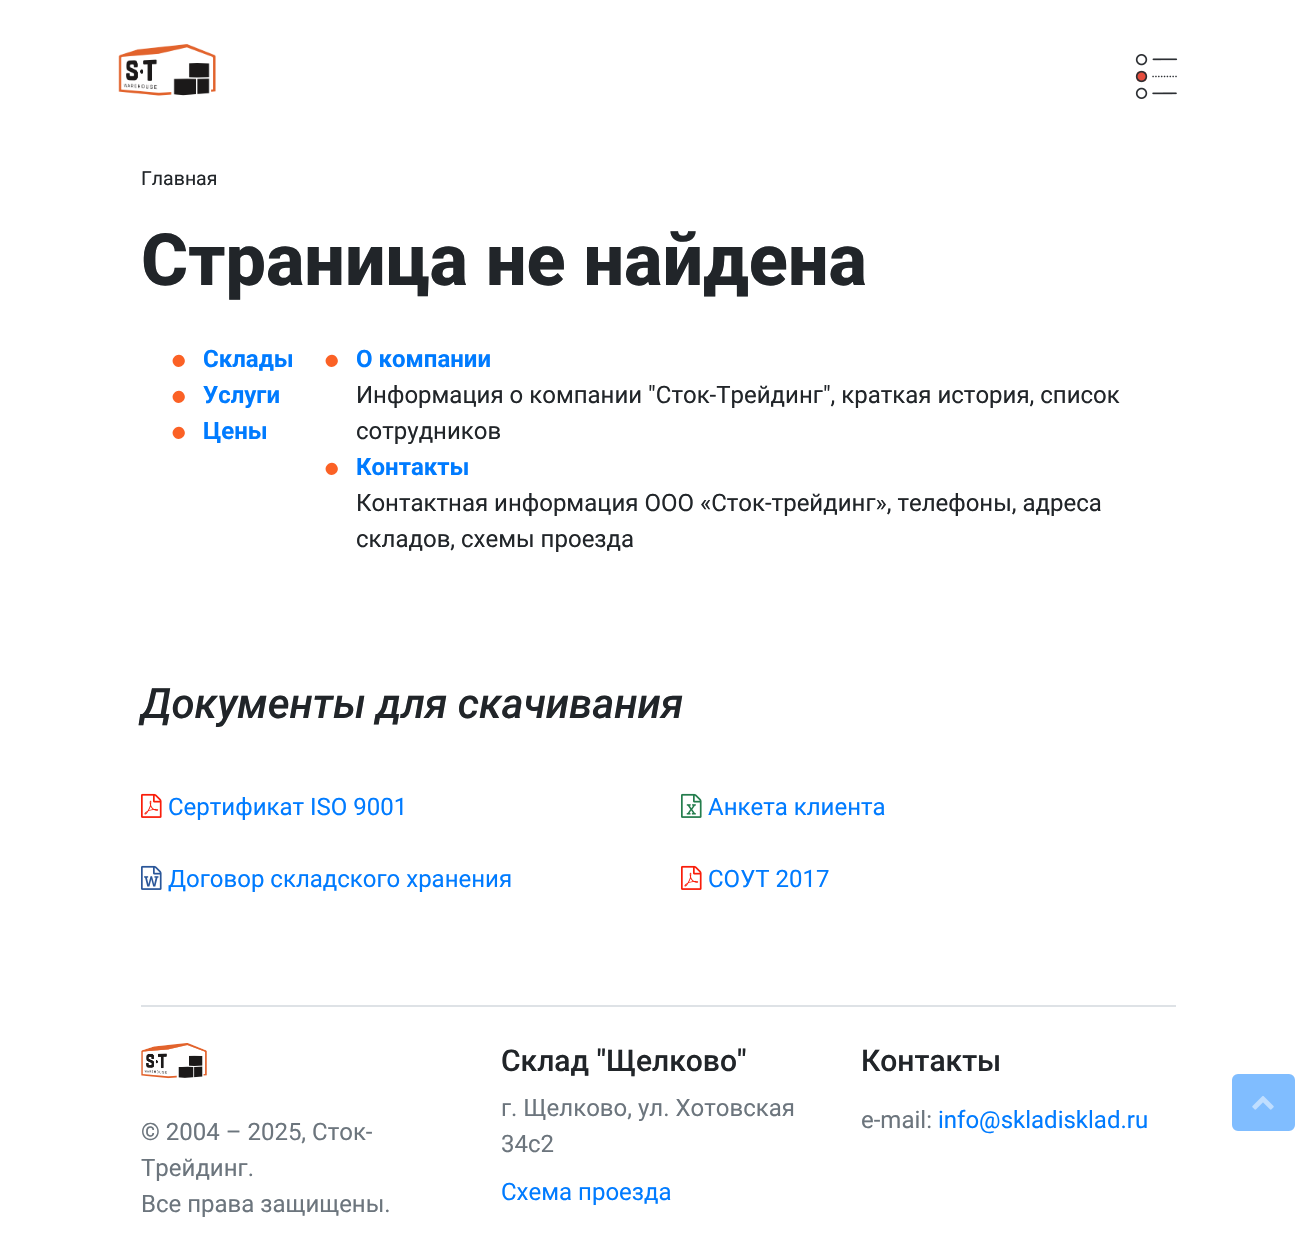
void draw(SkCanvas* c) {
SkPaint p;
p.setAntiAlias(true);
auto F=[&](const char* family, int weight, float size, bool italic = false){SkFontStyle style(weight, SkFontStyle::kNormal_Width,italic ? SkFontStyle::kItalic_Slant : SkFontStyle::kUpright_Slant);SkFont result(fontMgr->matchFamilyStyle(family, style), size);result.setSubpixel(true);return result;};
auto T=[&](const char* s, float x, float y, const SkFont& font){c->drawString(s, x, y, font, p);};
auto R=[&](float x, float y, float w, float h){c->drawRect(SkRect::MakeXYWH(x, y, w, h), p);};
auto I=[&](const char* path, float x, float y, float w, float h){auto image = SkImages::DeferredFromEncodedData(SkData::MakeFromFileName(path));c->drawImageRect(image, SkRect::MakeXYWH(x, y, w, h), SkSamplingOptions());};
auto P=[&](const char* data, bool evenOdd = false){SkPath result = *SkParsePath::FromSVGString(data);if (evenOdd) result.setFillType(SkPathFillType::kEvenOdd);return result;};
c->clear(0xffffffff);
I("1.png",118,44,98,52);
I("2.png",1135,54,43,45);
auto f1 = F("Roboto",400,19.5);
p.setColor(0xff212529);
T("Главная",141,185,f1);
auto f2 = F("Roboto",800,72);
T("Страница не найдена",141,285,f2);
p.setColor(0xfffb6125);
c->drawPath(P("M184 358c4 6.5-6.5 13-10.5 6c-4-7 6.5-13.5 10.5-6zm0 36c4 6.5-6.5 13-10.5 6c-4-7 6.5-13.5 10.5-6z"),p);
auto f3 = F("Roboto",700,24);
p.setColor(0xff007bff);
T("Склады",203,367,f3);
T("Услуги",203,403,f3);
p.setColor(0xfffb6125);
c->drawPath(P("M184 430c4 6.5-6.5 13-10.5 6c-4-7 6.5-13.5 10.5-6z"),p);
p.setColor(0xff007bff);
T("Цены",203,439,f3);
p.setColor(0xfffb6125);
c->drawPath(P("M337 358c4 6.5-6.5 13-10.5 6c-4-7 6.5-13.5 10.5-6z"),p);
p.setColor(0xff007bff);
T("О компании",356,367,f3);
auto f4 = F("Roboto",400,24);
p.setColor(0xff212529);
T("Информация о компании \"Сток-Трейдинг\", краткая история, список",356,403,f4);
T("сотрудников",356,439,f4);
p.setColor(0xfffb6125);
c->drawPath(P("M337 466c4 6.5-6.5 13-10.5 6c-4-7 6.5-13.5 10.5-6z"),p);
p.setColor(0xff007bff);
T("Контакты",356,475,f3);
p.setColor(0xff212529);
T("Контактная информация ООО «Сток-трейдинг», телефоны, адреса",356,511,f4);
T("складов, схемы проезда",356,547,f4);
auto f5 = F("Roboto",500,42,true);
T("Документы для скачивания",141,718,f5);
I("3.png",141,793,21,25);
p.setColor(0xff007bff);
T("Сертификат ISO 9001",168,815,f4);
I("4.png",681,793,21,25);
T("Анкета клиента",708,815,f4);
I("5.png",141,865,21,25);
T("Договор складского хранения",168,887,f4);
I("3.png",681,865,21,25);
T("СОУТ 2017",708,887,f4);
p.setColor(0xffdee2e6);
R(141,1005,1035,2);
auto f6 = F("Roboto",500,30);
p.setColor(0xff212529);
T("Склад \"Щелково\"",501,1071,f6);
p.setColor(0xff6c757d);
T("г. Щелково, ул. Хотовская",501,1116,f4);
T("34с2",501,1152,f4);
p.setColor(0xff007bff);
T("Схема проезда",501,1200,f4);
p.setColor(0xff212529);
T("Контакты",861,1071,f6);
p.setColor(0xff6c757d);
T("e-mail:",861,1128,f4);
p.setColor(0xff007bff);
T("info@skladisklad.ru",938,1128,f4);
I("6.png",141,1043,66,36);
p.setColor(0xff6c757d);
T("© 2004 – 2025, Сток-",141,1140,f4);
T("Трейдинг.",141,1176,f4);
T("Все права защищены.",141,1212,f4);
p.setColor(0xff80bdff);
c->drawRoundRect(SkRect::MakeXYWH(1233,1075,61,55),5,5,p);
p.setStroke(true);
p.setStrokeWidth(2);
c->drawRoundRect(SkRect::MakeXYWH(1233,1075,61,55),5,5,p);
I("7.png",1252,1096,22,14);
}
